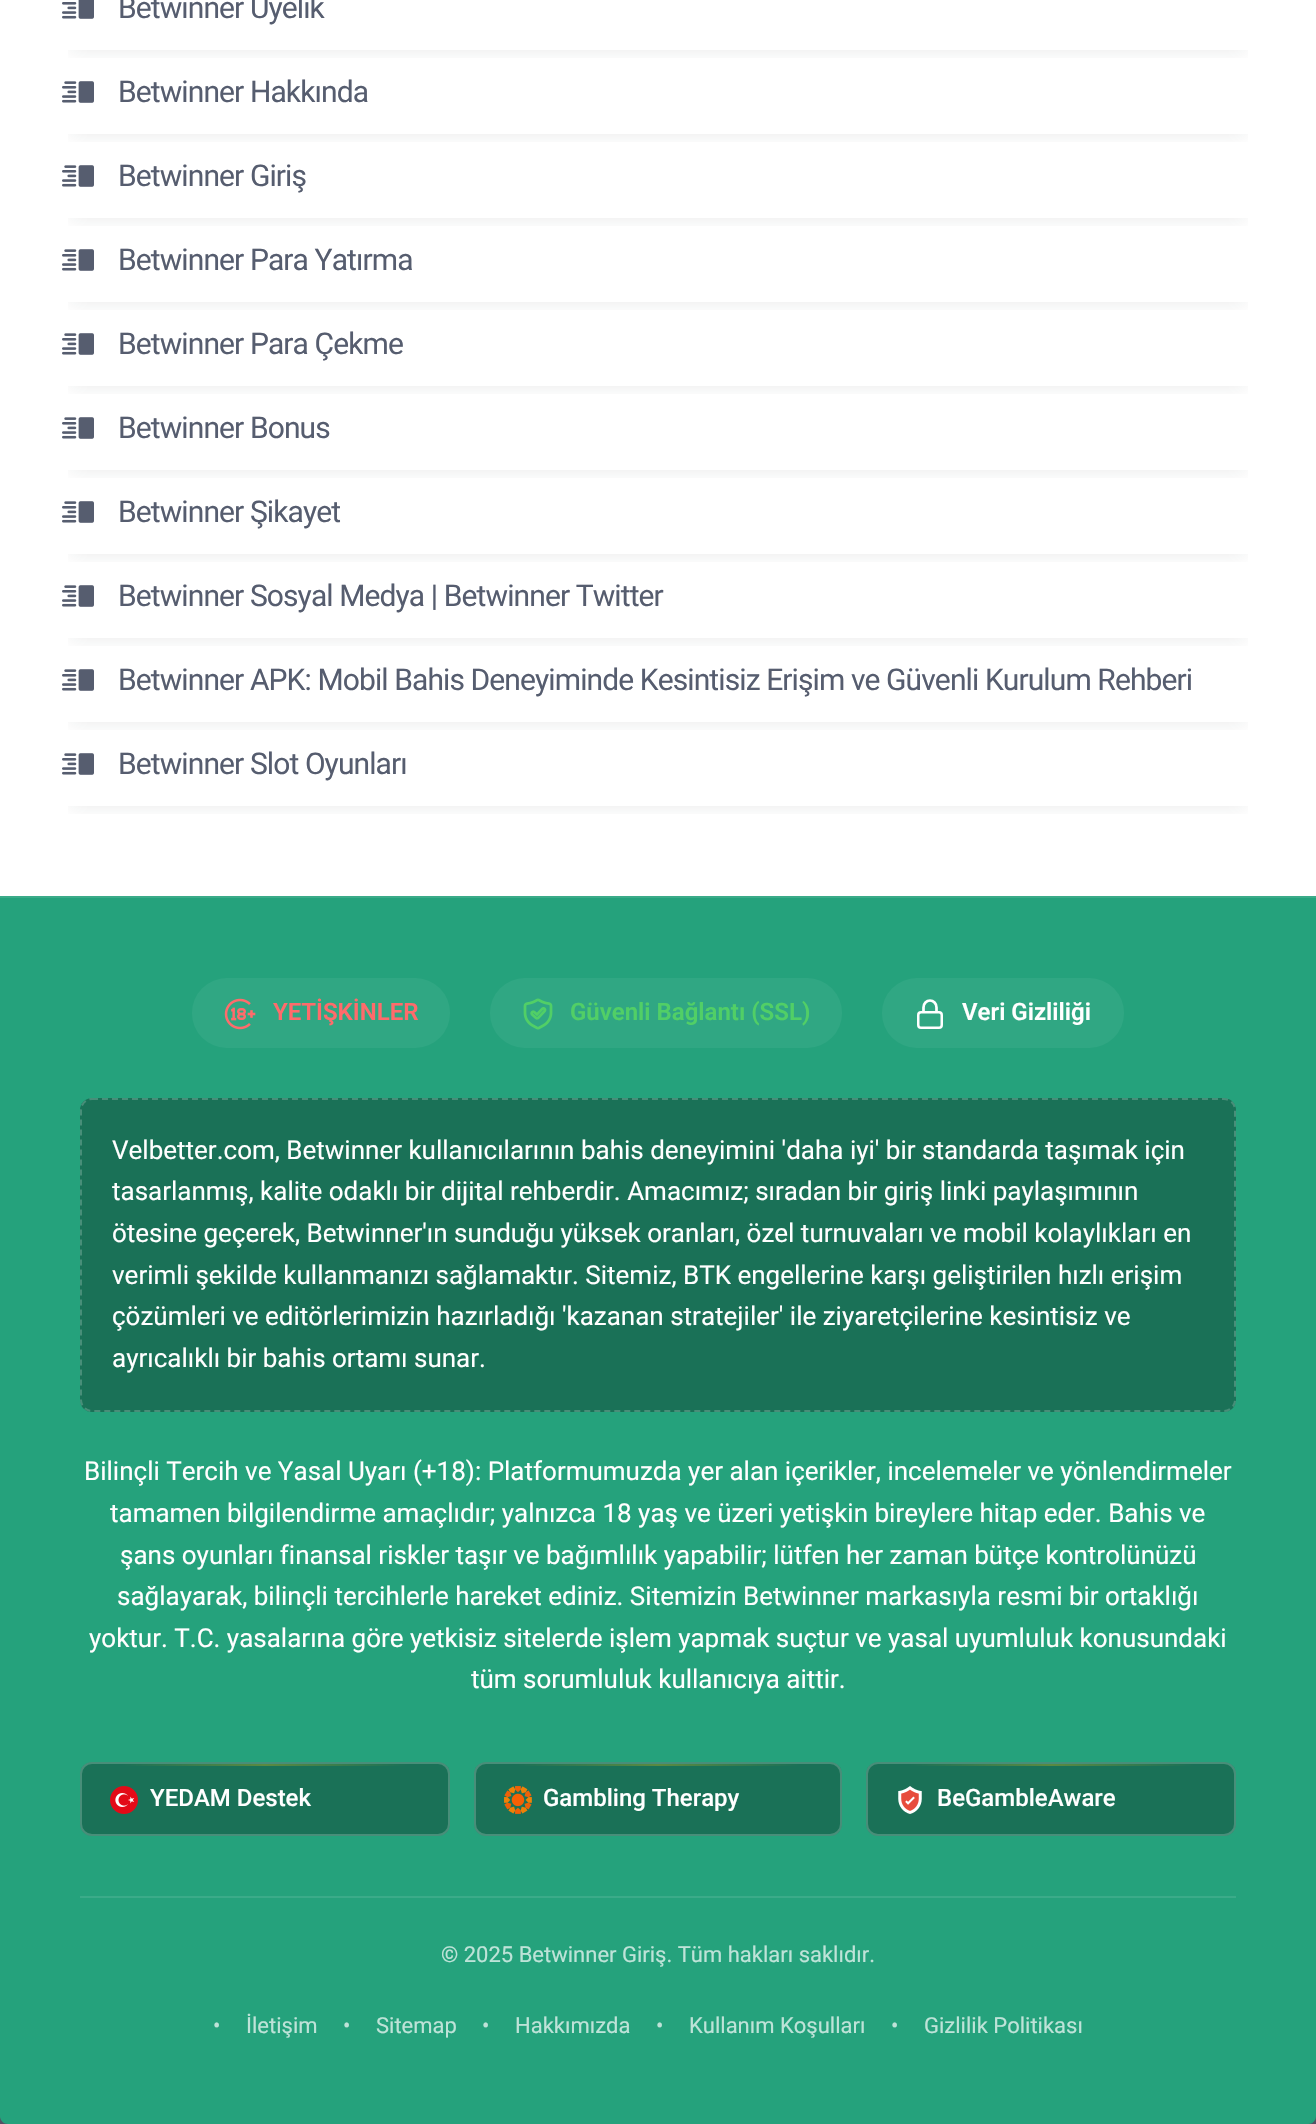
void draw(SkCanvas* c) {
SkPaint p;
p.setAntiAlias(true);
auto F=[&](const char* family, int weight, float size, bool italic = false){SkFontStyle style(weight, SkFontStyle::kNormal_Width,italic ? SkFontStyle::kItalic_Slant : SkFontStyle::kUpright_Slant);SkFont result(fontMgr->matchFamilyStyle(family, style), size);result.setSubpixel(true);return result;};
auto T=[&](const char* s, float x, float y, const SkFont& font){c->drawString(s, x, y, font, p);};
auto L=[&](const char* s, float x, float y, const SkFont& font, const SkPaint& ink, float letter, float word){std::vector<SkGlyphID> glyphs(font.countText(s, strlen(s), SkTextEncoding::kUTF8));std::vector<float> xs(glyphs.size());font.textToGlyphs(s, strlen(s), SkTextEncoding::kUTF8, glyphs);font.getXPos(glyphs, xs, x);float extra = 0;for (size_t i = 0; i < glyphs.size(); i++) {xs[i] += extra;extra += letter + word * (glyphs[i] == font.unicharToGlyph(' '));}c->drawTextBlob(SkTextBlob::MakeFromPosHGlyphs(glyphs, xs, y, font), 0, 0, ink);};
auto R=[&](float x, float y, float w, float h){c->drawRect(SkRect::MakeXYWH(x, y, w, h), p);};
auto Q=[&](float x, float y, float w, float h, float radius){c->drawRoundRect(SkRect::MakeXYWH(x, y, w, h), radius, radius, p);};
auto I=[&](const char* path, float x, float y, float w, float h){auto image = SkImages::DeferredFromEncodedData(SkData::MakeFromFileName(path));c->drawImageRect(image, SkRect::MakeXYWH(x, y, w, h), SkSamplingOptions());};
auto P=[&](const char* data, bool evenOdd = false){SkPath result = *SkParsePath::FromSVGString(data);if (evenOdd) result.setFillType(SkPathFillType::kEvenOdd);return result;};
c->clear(0xff515365);
p.setColor(0xffffffff);
R(0,0,1316,896);
c->save();
c->clipRect(SkRect::MakeXYWH(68,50,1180,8));
p.setColor(0x1a212326);
p.setMaskFilter(SkMaskFilter::MakeBlur(kNormal_SkBlurStyle, 10));
c->drawRect(SkRect::MakeXYWH(70,6,1176,44),p);
p.setMaskFilter(nullptr);
c->restore();
I("1.png",62,0,32,19);
auto f1 = F("Roboto",400,30);
p.setColor(0xff565d6f);
L("Betwinner Üyelik",118,18,f1,p,-.9,0);
c->save();
c->clipRect(SkRect::MakeXYWH(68,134,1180,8));
p.setColor(0x1a212326);
p.setMaskFilter(SkMaskFilter::MakeBlur(kNormal_SkBlurStyle, 10));
c->drawRect(SkRect::MakeXYWH(70,90,1176,44),p);
p.setMaskFilter(nullptr);
c->restore();
I("2.png",62,81,32,22);
p.setColor(0xff565d6f);
L("Betwinner Hakkında",118,102,f1,p,-.9,0);
c->save();
c->clipRect(SkRect::MakeXYWH(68,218,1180,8));
p.setColor(0x1a212326);
p.setMaskFilter(SkMaskFilter::MakeBlur(kNormal_SkBlurStyle, 10));
c->drawRect(SkRect::MakeXYWH(70,174,1176,44),p);
p.setMaskFilter(nullptr);
c->restore();
I("2.png",62,165,32,22);
p.setColor(0xff565d6f);
L("Betwinner Giriş",118,186,f1,p,-.9,0);
c->save();
c->clipRect(SkRect::MakeXYWH(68,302,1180,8));
p.setColor(0x1a212326);
p.setMaskFilter(SkMaskFilter::MakeBlur(kNormal_SkBlurStyle, 10));
c->drawRect(SkRect::MakeXYWH(70,258,1176,44),p);
p.setMaskFilter(nullptr);
c->restore();
I("2.png",62,249,32,22);
p.setColor(0xff565d6f);
L("Betwinner Para Yatırma",118,270,f1,p,-.9,0);
c->save();
c->clipRect(SkRect::MakeXYWH(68,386,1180,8));
p.setColor(0x1a212326);
p.setMaskFilter(SkMaskFilter::MakeBlur(kNormal_SkBlurStyle, 10));
c->drawRect(SkRect::MakeXYWH(70,342,1176,44),p);
p.setMaskFilter(nullptr);
c->restore();
I("2.png",62,333,32,22);
p.setColor(0xff565d6f);
L("Betwinner Para Çekme",118,354,f1,p,-.9,0);
c->save();
c->clipRect(SkRect::MakeXYWH(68,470,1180,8));
p.setColor(0x1a212326);
p.setMaskFilter(SkMaskFilter::MakeBlur(kNormal_SkBlurStyle, 10));
c->drawRect(SkRect::MakeXYWH(70,426,1176,44),p);
p.setMaskFilter(nullptr);
c->restore();
I("2.png",62,417,32,22);
p.setColor(0xff565d6f);
L("Betwinner Bonus",118,438,f1,p,-.9,0);
c->save();
c->clipRect(SkRect::MakeXYWH(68,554,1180,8));
p.setColor(0x1a212326);
p.setMaskFilter(SkMaskFilter::MakeBlur(kNormal_SkBlurStyle, 10));
c->drawRect(SkRect::MakeXYWH(70,510,1176,44),p);
p.setMaskFilter(nullptr);
c->restore();
I("2.png",62,501,32,22);
p.setColor(0xff565d6f);
L("Betwinner Şikayet",118,522,f1,p,-.9,0);
c->save();
c->clipRect(SkRect::MakeXYWH(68,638,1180,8));
p.setColor(0x1a212326);
p.setMaskFilter(SkMaskFilter::MakeBlur(kNormal_SkBlurStyle, 10));
c->drawRect(SkRect::MakeXYWH(70,594,1176,44),p);
p.setMaskFilter(nullptr);
c->restore();
I("2.png",62,585,32,22);
p.setColor(0xff565d6f);
L("Betwinner Sosyal Medya | Betwinner Twitter",118,606,f1,p,-.9,0);
c->save();
c->clipRect(SkRect::MakeXYWH(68,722,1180,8));
p.setColor(0x1a212326);
p.setMaskFilter(SkMaskFilter::MakeBlur(kNormal_SkBlurStyle, 10));
c->drawRect(SkRect::MakeXYWH(70,678,1176,44),p);
p.setMaskFilter(nullptr);
c->restore();
I("2.png",62,669,32,22);
p.setColor(0xff565d6f);
L("Betwinner APK: Mobil Bahis Deneyiminde Kesintisiz Erişim ve Güvenli Kurulum Rehberi",118,690,f1,p,-.9,0);
c->save();
c->clipRect(SkRect::MakeXYWH(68,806,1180,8));
p.setColor(0x1a212326);
p.setMaskFilter(SkMaskFilter::MakeBlur(kNormal_SkBlurStyle, 10));
c->drawRect(SkRect::MakeXYWH(70,762,1176,44),p);
p.setMaskFilter(nullptr);
c->restore();
I("2.png",62,753,32,22);
p.setColor(0xff565d6f);
L("Betwinner Slot Oyunları",118,774,f1,p,-.9,0);
p.setColor(0xff25a27c);
c->drawPath(P("M0 896h1316v1220c0 4.5-3.5 8-8 8h-1300c-4.5 0-8-3.5-8-8z"),p);
p.setColor(0xff3bab89);
R(0,896,1316,2);
p.setColor(0xff30a783);
Q(192,978,258,70,35);
I("3.png",224,998,32,32);
auto f2 = F("Roboto",600,24);
p.setColor(0xffff6b6b);
T("YETİŞKİNLER",273,1020,f2);
p.setColor(0xff30a783);
Q(490,978,352,70,35);
I("4.png",523,998,30,32);
p.setColor(0xff51cf66);
T("Güvenli Bağlantı (SSL)",570,1020,f2);
p.setColor(0xff30a783);
Q(882,978,242,70,35);
p.setStroke(true);
p.setStrokeWidth(2.5);
p.setColor(0xffffffff);
c->drawRoundRect(SkRect::MakeXYWH(918.25,1012.25,23.5,15.5),2.75,2.75,p);
p.setStrokeWidth(2.7);
c->drawPath(P("M923.5 1012.5v-5c0-4 3-7 6.5-7c3.5 0 6.5 3 6.5 7v5"),p);
p.setStroke(false);
T("Veri Gizliliği",962,1020,f2);
p.setColor(0xff1a7157);
Q(80,1098,1156,314,12);
p.setStroke(true);
p.setStrokeWidth(2);
p.setColor(0x33ffffff);
p.setPathEffect(SkDashPathEffect::Make({{6,4}}, 0));
c->drawPath(P("M92 1099h1132c6 0 11 5 11 11v290c0 6-5 11-11 11h-1132c-6 0-11-5-11-11v-290c0-6 5-11 11-11z"),p);
p.setPathEffect(nullptr);
auto f3 = F("Roboto",400,26);
p.setStroke(false);
p.setColor(0xffffffff);
T("Velbetter.com, Betwinner kullanıcılarının bahis deneyimini 'daha iyi' bir standarda taşımak için",112,1159,f3);
T("tasarlanmış, kalite odaklı bir dijital rehberdir. Amacımız; sıradan bir giriş linki paylaşımının",112,1200,f3);
T("ötesine geçerek, Betwinner'ın sunduğu yüksek oranları, özel turnuvaları ve mobil kolaylıkları en",112,1242,f3);
T("verimli şekilde kullanmanızı sağlamaktır. Sitemiz, BTK engellerine karşı geliştirilen hızlı erişim",112,1284,f3);
T("çözümleri ve editörlerimizin hazırladığı 'kazanan stratejiler' ile ziyaretçilerine kesintisiz ve",112,1325,f3);
T("ayrıcalıklı bir bahis ortamı sunar.",112,1367,f3);
T("Bilinçli Tercih ve Yasal Uyarı (+18): Platformumuzda yer alan içerikler, incelemeler ve yönlendirmeler",84,1480,f3);
T("tamamen bilgilendirme amaçlıdır; yalnızca 18 yaş ve üzeri yetişkin bireylere hitap eder. Bahis ve",110,1522,f3);
T("şans oyunları finansal riskler taşır ve bağımlılık yapabilir; lütfen her zaman bütçe kontrolünüzü",120,1564,f3);
T("sağlayarak, bilinçli tercihlerle hareket ediniz. Sitemizin Betwinner markasıyla resmi bir ortaklığı",117,1605,f3);
T("yoktur. T.C. yasalarına göre yetkisiz sitelerde işlem yapmak suçtur ve yasal uyumluluk konusundaki",89,1647,f3);
T("tüm sorumluluk kullanıcıya aittir.",471,1688,f3);
p.setColor(0xff1a7157);
Q(80,1762,370,74,12);
p.setStroke(true);
p.setColor(0x33ffffff);
c->drawRoundRect(SkRect::MakeXYWH(81,1763,368,72),11,11,p);
p.setStroke(false);
{
const SkColor colors[] = {0xff1a7157,0xff5b8a41,0xff1a7157};
const float stops[] = {0,.5,1};
const SkPoint ends[] = {{122,1765}, {408,1765}};
p.setShader(SkGradientShader::MakeLinear(ends, colors, stops, 3, SkTileMode::kClamp));
p.setAlpha(255);
}
R(122,1764,286,2);
I("5.png",110,1786,28,28);
auto f4 = F("Roboto",500,24);
p.setShader(nullptr);
p.setColor(0xffffffff);
T("YEDAM Destek",150,1806,f4);
p.setColor(0xff1a7157);
Q(474,1762,368,74,12);
p.setStroke(true);
p.setColor(0x33ffffff);
c->drawRoundRect(SkRect::MakeXYWH(475,1763,366,72),11,11,p);
p.setStroke(false);
{
const SkColor colors[] = {0xff1a7157,0xff5b8a41,0xff1a7157};
const float stops[] = {0,.5,1};
const SkPoint ends[] = {{516,1765}, {800,1765}};
p.setShader(SkGradientShader::MakeLinear(ends, colors, stops, 3, SkTileMode::kClamp));
p.setAlpha(255);
}
R(516,1764,284,2);
I("6.png",504,1786,28,28);
p.setShader(nullptr);
p.setColor(0xffffffff);
T("Gambling Therapy",543,1806,f4);
p.setColor(0xff1a7157);
Q(866,1762,370,74,12);
p.setStroke(true);
p.setColor(0x33ffffff);
c->drawRoundRect(SkRect::MakeXYWH(867,1763,368,72),11,11,p);
p.setStroke(false);
{
const SkColor colors[] = {0xff1a7157,0xff5b8a41,0xff1a7157};
const float stops[] = {0,.5,1};
const SkPoint ends[] = {{908,1765}, {1194,1765}};
p.setShader(SkGradientShader::MakeLinear(ends, colors, stops, 3, SkTileMode::kClamp));
p.setAlpha(255);
}
R(908,1764,286,2);
I("7.png",898,1786,24,28);
p.setShader(nullptr);
p.setColor(0xffffffff);
T("BeGambleAware",937,1806,f4);
p.setColor(0xff3bab89);
R(80,1896,1156,2);
auto f5 = F("Roboto",400,22);
p.setColor(0xffbee3d8);
T("© 2025 Betwinner Giriş. Tüm hakları saklıdır.",441,1962,f5);
T("•",213,2033,f5);
T("İletişim",246,2033,f5);
T("•",343,2033,f5);
T("Sitemap",376,2033,f5);
T("•",482,2033,f5);
T("Hakkımızda",515,2033,f5);
T("•",656,2033,f5);
T("Kullanım Koşulları",689,2033,f5);
T("•",891,2033,f5);
T("Gizlilik Politikası",924,2033,f5);
}
